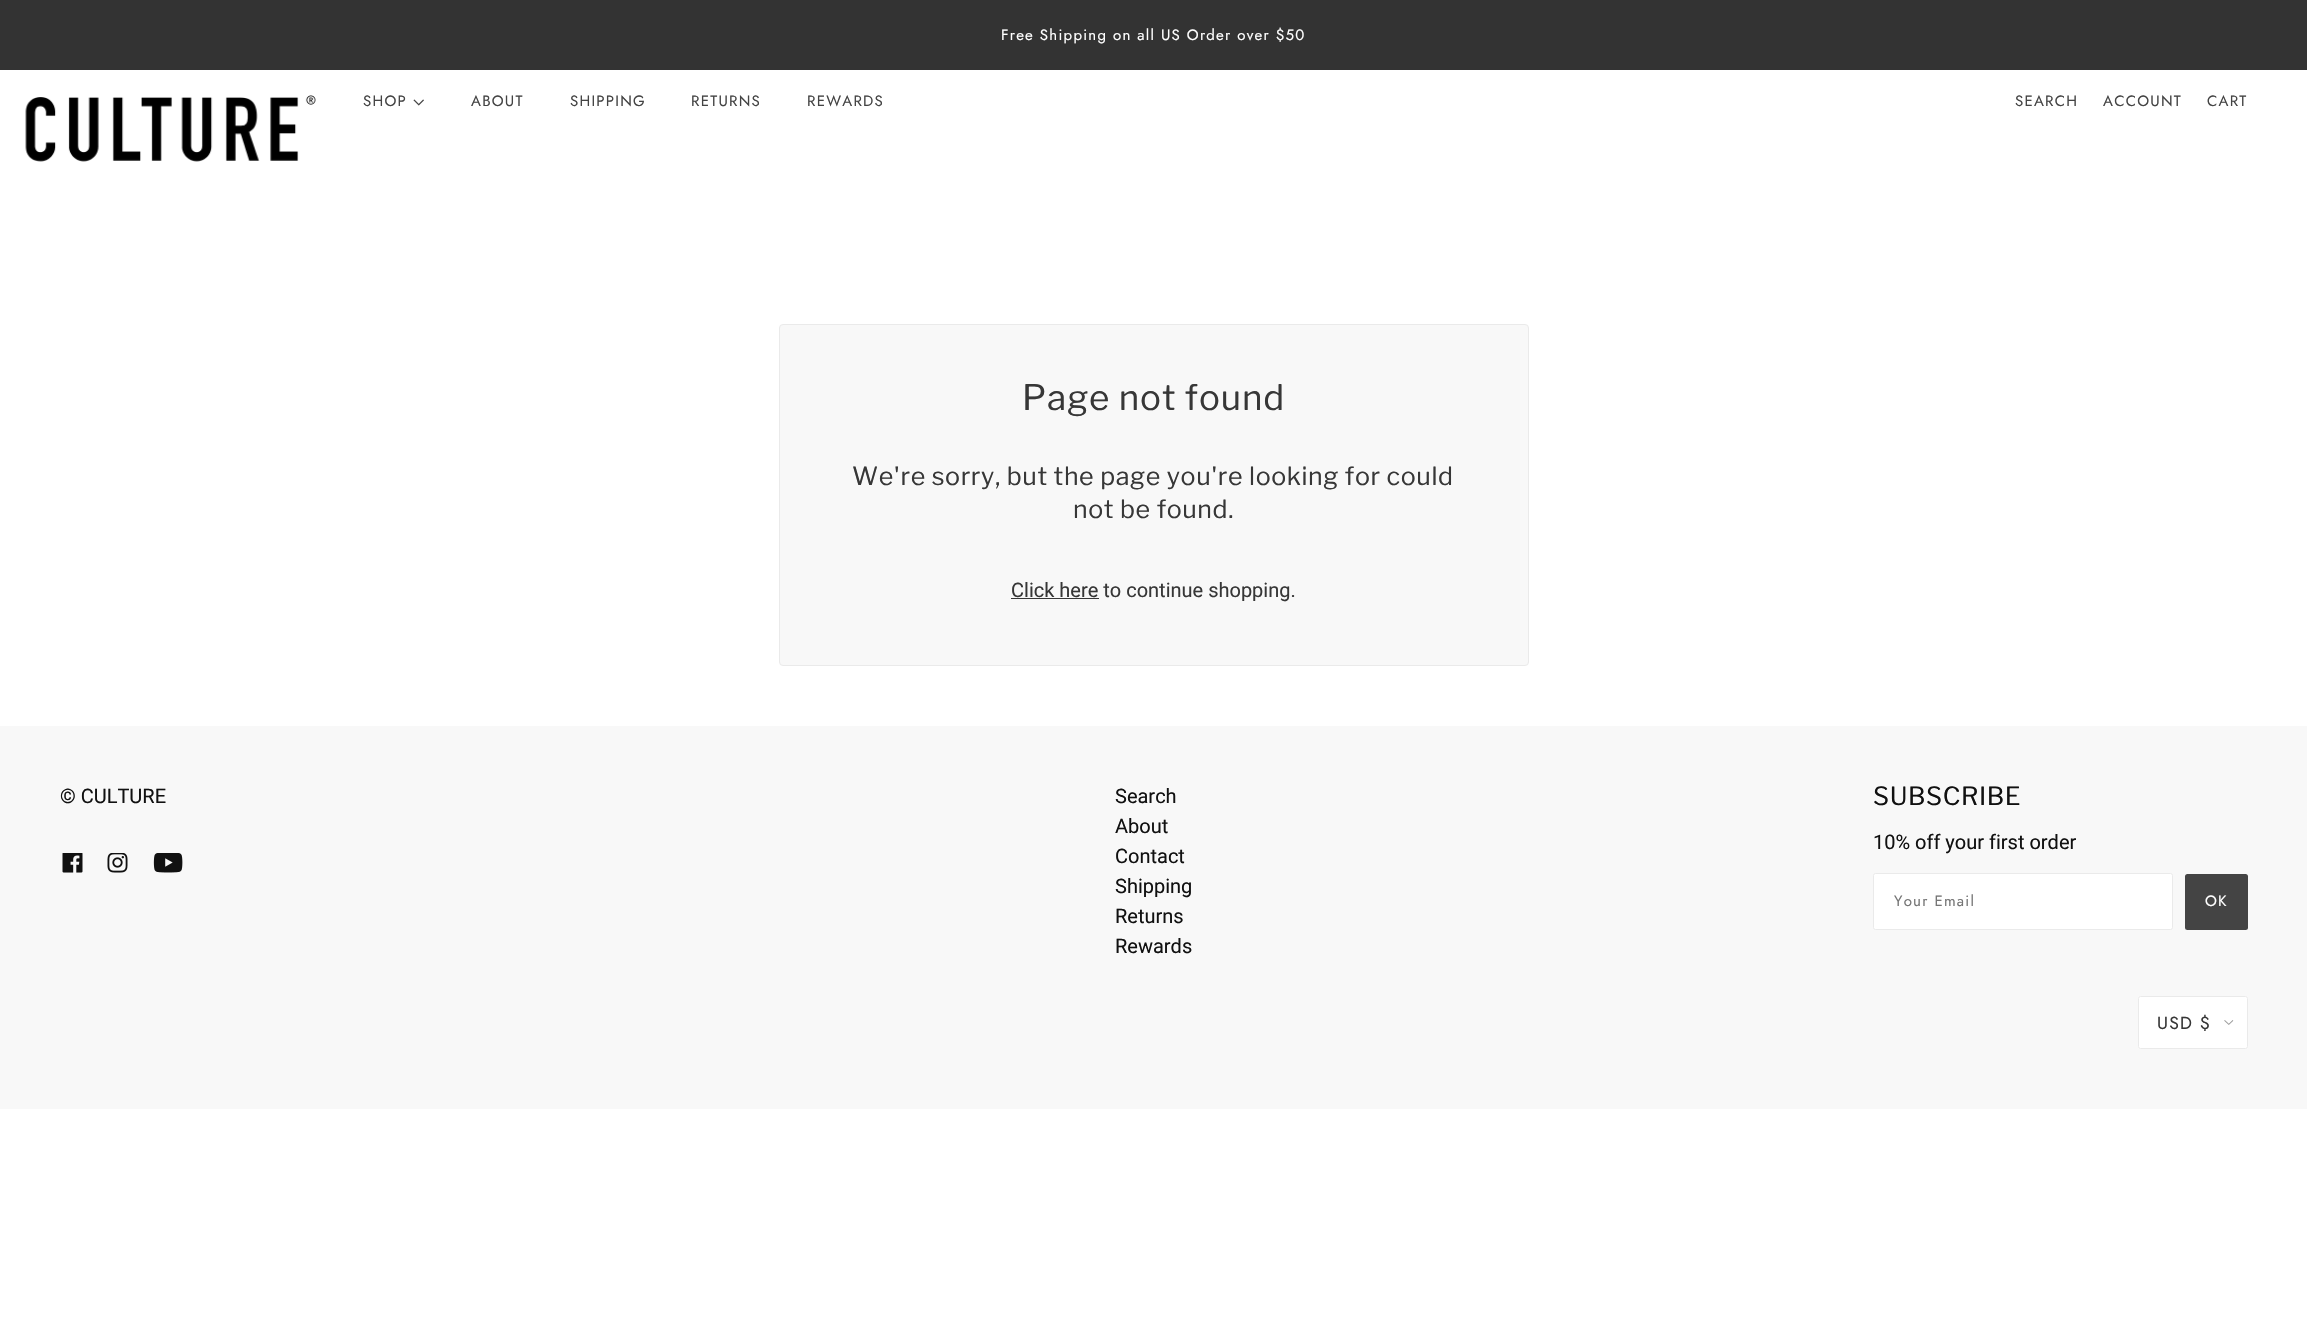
void draw(SkCanvas* c) {
SkPaint p;
p.setAntiAlias(true);
auto F=[&](const char* family, int weight, float size, bool italic = false){SkFontStyle style(weight, SkFontStyle::kNormal_Width,italic ? SkFontStyle::kItalic_Slant : SkFontStyle::kUpright_Slant);SkFont result(fontMgr->matchFamilyStyle(family, style), size);result.setSubpixel(true);return result;};
auto T=[&](const char* s, float x, float y, const SkFont& font){c->drawString(s, x, y, font, p);};
auto L=[&](const char* s, float x, float y, const SkFont& font, const SkPaint& ink, float letter, float word){std::vector<SkGlyphID> glyphs(font.countText(s, strlen(s), SkTextEncoding::kUTF8));std::vector<float> xs(glyphs.size());font.textToGlyphs(s, strlen(s), SkTextEncoding::kUTF8, glyphs);font.getXPos(glyphs, xs, x);float extra = 0;for (size_t i = 0; i < glyphs.size(); i++) {xs[i] += extra;extra += letter + word * (glyphs[i] == font.unicharToGlyph(' '));}c->drawTextBlob(SkTextBlob::MakeFromPosHGlyphs(glyphs, xs, y, font), 0, 0, ink);};
auto R=[&](float x, float y, float w, float h){c->drawRect(SkRect::MakeXYWH(x, y, w, h), p);};
auto Q=[&](float x, float y, float w, float h, float radius){c->drawRoundRect(SkRect::MakeXYWH(x, y, w, h), radius, radius, p);};
auto I=[&](const char* path, float x, float y, float w, float h){auto image = SkImages::DeferredFromEncodedData(SkData::MakeFromFileName(path));c->drawImageRect(image, SkRect::MakeXYWH(x, y, w, h), SkSamplingOptions());};
c->clear(0xffffffff);
p.setColor(0xff333333);
R(0,0,2307,70);
auto f1 = F("Jost",400,15);
p.setColor(0xffffffff);
L("Free Shipping on all US Order over $50",1001,40,f1,p,1.25,0);
I("1.png",25,95,291,67);
p.setColor(0xff444444);
L("SHOP",363,106,f1,p,1.25,0);
I("2.png",413,99,11,7);
L("ABOUT",471,106,f1,p,1.25,0);
L("SHIPPING",570,106,f1,p,1.25,0);
L("RETURNS",691,106,f1,p,1.25,0);
L("REWARDS",807,106,f1,p,1.25,0);
L("SEARCH",2015,106,f1,p,1.25,0);
L("ACCOUNT",2103,106,f1,p,1.25,0);
L("CART",2207,106,f1,p,1.25,0);
p.setColor(0xfff8f8f8);
c->drawRoundRect(SkRect::MakeXYWH(779.5,324.5,749,341),3.5,3.5,p);
p.setStroke(true);
p.setStrokeWidth(1);
p.setColor(0xffeaeaea);
c->drawRoundRect(SkRect::MakeXYWH(779.5,324.5,749,341),3.5,3.5,p);
auto f2 = F("Libre Franklin",400,35);
p.setStroke(false);
p.setColor(0xff373737);
L("Page not found",1022,410,f2,p,.9,0);
auto f3 = F("Libre Franklin",400,25);
L("We're sorry, but the page you're looking for could",852,485,f3,p,.6,0);
L("not be found.",1073,518,f3,p,.6,0);
R(1011,598,88,1);
auto f4 = F("Roboto",400,20);
T("Click here to continue shopping.",1011,597,f4);
p.setColor(0xfff8f8f8);
R(0,726,2307,383);
p.setColor(0xff111111);
T("© CULTURE",60,803,f4);
I("3.png",62,853,21,20);
I("4.png",107,853,21,20);
I("5.png",153,853,30,20);
T("Search",1115,803,f4);
T("About",1115,833,f4);
T("Contact",1115,863,f4);
T("Shipping",1115,893,f4);
T("Returns",1115,923,f4);
T("Rewards",1115,953,f4);
L("SUBSCRIBE",1873,805,f3,p,.6,0);
T("10% off your first order",1873,849,f4);
p.setColor(0xffffffff);
c->drawRoundRect(SkRect::MakeXYWH(1873.5,873.5,299,56),2,2,p);
p.setStroke(true);
p.setColor(0xffeaeaea);
c->drawRoundRect(SkRect::MakeXYWH(1873.5,873.5,299,56),2,2,p);
p.setStroke(false);
p.setColor(0xff757575);
L("Your Email",1894,906,f1,p,1.25,0);
p.setColor(0xff444444);
Q(2185,874,63,56,2.5);
p.setColor(0xffffffff);
L("OK",2205,906,f1,p,1.25,0);
Q(2138,996,110,53,2.5);
I("6.png",2224,1020,10,5);
p.setStroke(true);
p.setColor(0xffeaeaea);
c->drawRoundRect(SkRect::MakeXYWH(2138.5,996.5,109,52),2,2,p);
auto f5 = F("Jost",400,17.5);
p.setStroke(false);
p.setColor(0xff373737);
L("USD $",2157,1029,f5,p,1.25,0);
}
